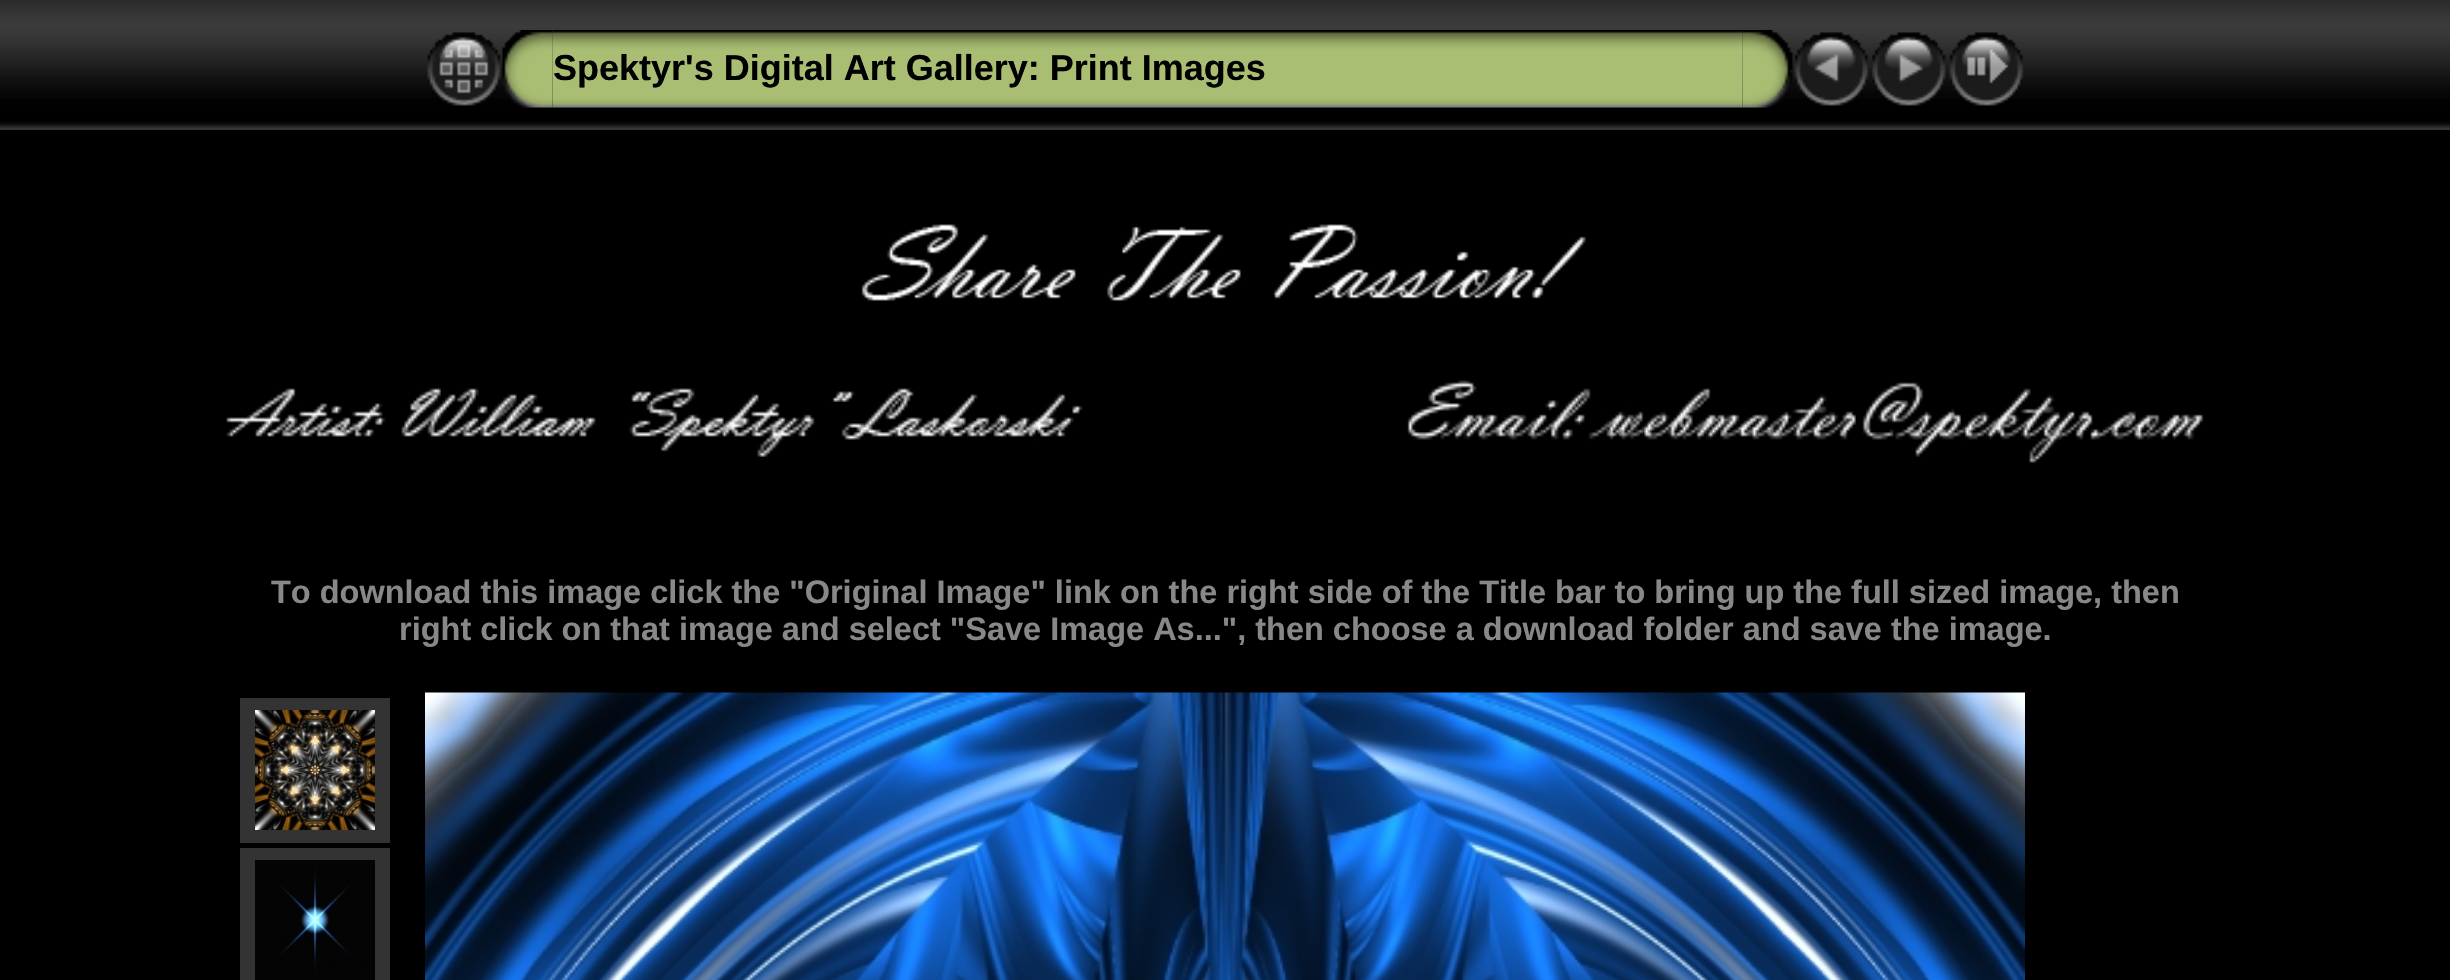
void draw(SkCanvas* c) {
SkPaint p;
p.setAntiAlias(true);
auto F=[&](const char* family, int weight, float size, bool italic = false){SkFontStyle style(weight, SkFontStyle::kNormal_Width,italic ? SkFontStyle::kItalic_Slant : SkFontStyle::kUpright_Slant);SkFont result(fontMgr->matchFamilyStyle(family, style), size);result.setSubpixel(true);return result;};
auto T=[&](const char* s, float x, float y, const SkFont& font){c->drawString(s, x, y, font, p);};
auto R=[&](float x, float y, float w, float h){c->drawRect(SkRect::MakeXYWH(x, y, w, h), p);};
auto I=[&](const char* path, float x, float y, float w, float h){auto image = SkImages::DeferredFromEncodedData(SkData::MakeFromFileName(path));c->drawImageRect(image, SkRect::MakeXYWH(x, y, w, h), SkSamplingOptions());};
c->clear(0xff000000);
I("1.png",0,0,2450,130);
I("2.png",427,32,74,74);
I("4.png",552,30,1191,78);
I("3.png",502,30,51,78);
auto f1 = F("Liberation Sans",700,36);
p.setColor(0xff000000);
T("Spektyr's Digital Art Gallery: Print Images",553,80,f1);
I("5.png",1742,30,51,78);
I("6.png",1794,32,75,74);
I("7.png",1872,32,74,74);
I("8.png",1949,32,75,74);
I("9.png",861,224,725,77);
I("10.png",226,388,857,69);
I("11.png",1407,380,797,83);
auto f2 = F("Liberation Sans",700,32.5);
p.setColor(0xff888888);
T("To download this image click the \"Original Image\" link on the right side of the Title bar to bring up the full sized image, then",271,603,f2);
T("right click on that image and select \"Save Image As...\", then choose a download folder and save the image.",399,640,f2);
p.setColor(0xff333333);
R(240,698,150,145);
I("12.png",255,710,120,120);
R(240,848,150,132);
I("13.png",255,860,120,120);
I("14.png",425,692,1600,288);
}
